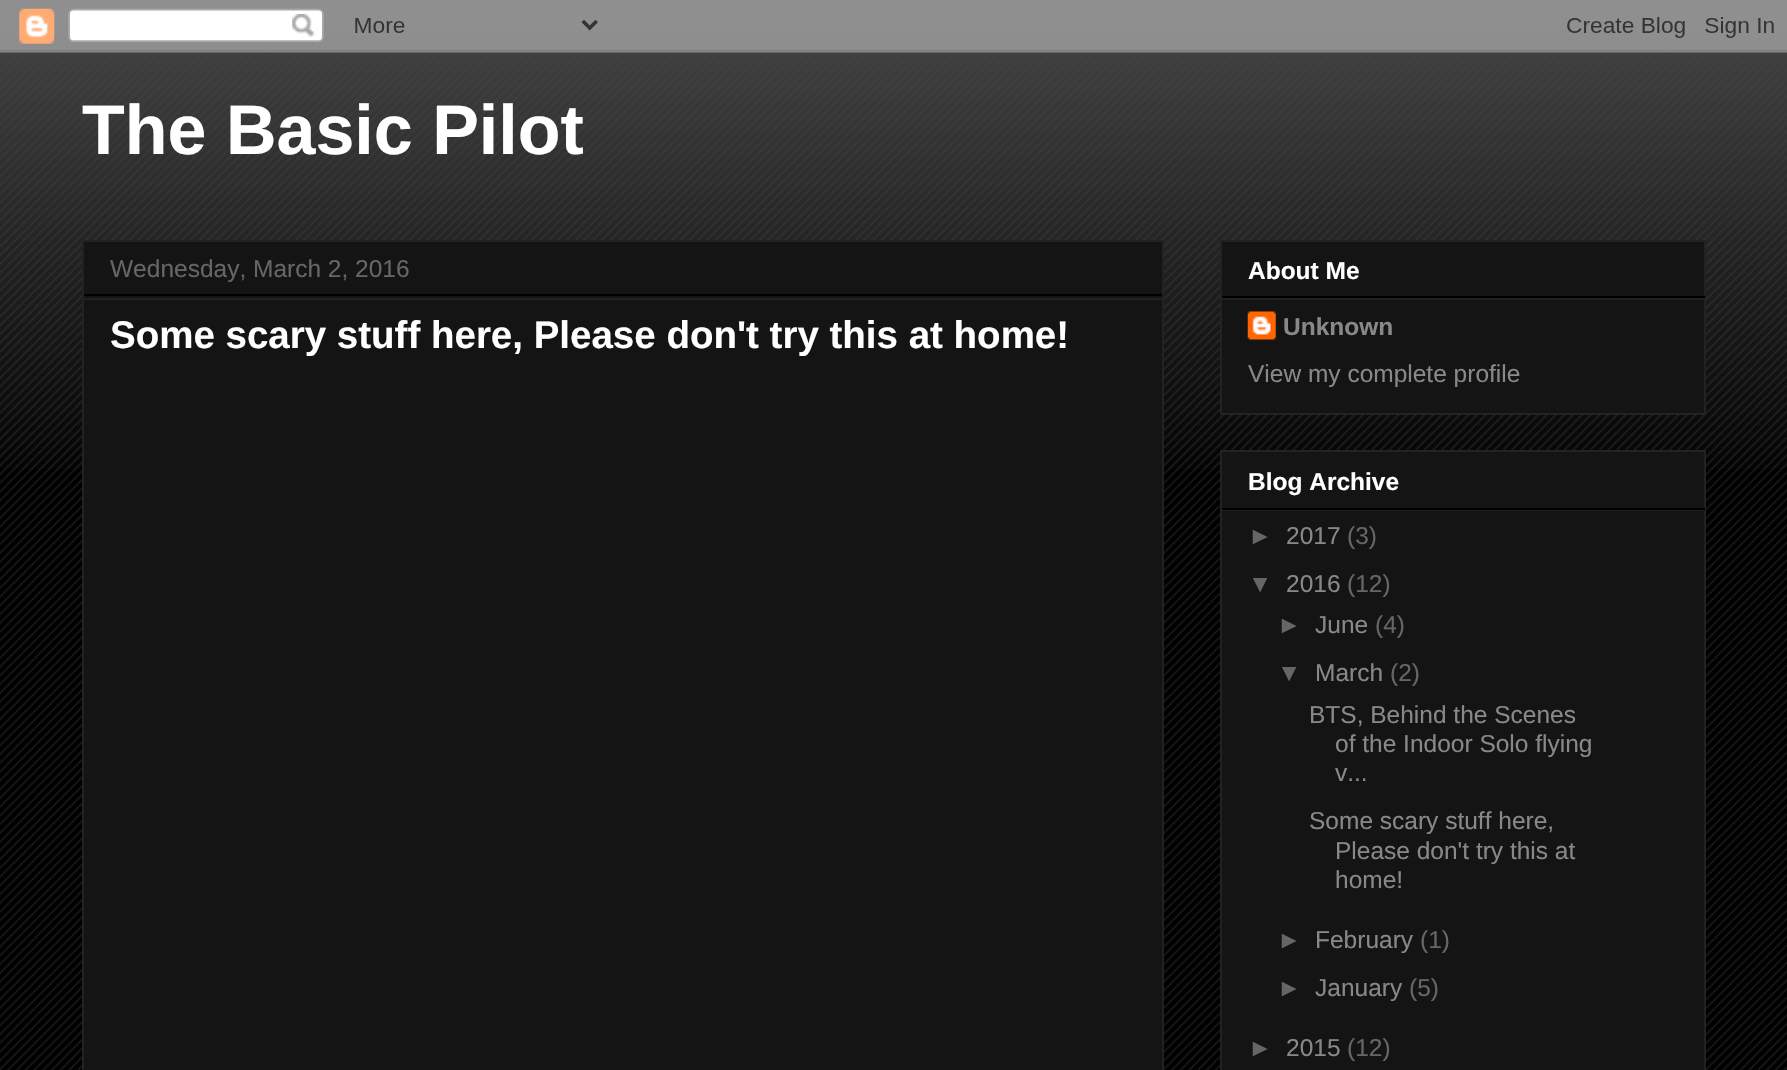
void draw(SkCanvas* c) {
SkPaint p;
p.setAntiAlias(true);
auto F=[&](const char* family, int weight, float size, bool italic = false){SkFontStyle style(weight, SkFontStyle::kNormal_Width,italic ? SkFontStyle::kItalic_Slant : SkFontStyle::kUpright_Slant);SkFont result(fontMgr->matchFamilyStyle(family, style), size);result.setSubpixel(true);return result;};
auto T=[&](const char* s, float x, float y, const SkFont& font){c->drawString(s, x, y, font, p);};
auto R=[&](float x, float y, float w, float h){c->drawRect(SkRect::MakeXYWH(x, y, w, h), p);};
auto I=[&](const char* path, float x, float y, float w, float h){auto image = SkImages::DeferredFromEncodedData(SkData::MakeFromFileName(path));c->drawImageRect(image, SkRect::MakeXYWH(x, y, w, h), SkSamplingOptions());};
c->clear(0xff000000);
I("1.png",0,23,1787,1047);
I("2.png",0,0,1787,469);
I("3.png",0,0,1787,53);
auto f1 = F("Liberation Sans",700,70);
p.setColor(0xffffffff);
T("The Basic Pilot",82,154,f1);
p.setColor(0xff141414);
c->drawRect(SkRect::MakeXYWH(83,241,1080,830),p);
p.setStroke(true);
p.setStrokeWidth(2);
p.setColor(0xff222222);
c->drawRect(SkRect::MakeXYWH(83,241,1080,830),p);
p.setStroke(false);
p.setColor(0xff000000);
R(84,294,1078,2);
auto f2 = F("Liberation Sans",400,24.5);
p.setColor(0xff666666);
T("Wednesday, March 2, 2016",110,277,f2);
p.setColor(0xff222222);
R(84,298,1078,2);
auto f3 = F("Liberation Sans",700,38.5);
p.setColor(0xffffffff);
T("Some scary stuff here, Please don't try this at home!",110,348,f3);
p.setColor(0xff141414);
c->drawRect(SkRect::MakeXYWH(1221,241,484,173),p);
p.setStroke(true);
p.setColor(0xff222222);
c->drawRect(SkRect::MakeXYWH(1221,241,484,173),p);
p.setStroke(false);
p.setColor(0xff000000);
R(1222,296,483,2);
auto f4 = F("Liberation Sans",700,24.5);
p.setColor(0xffffffff);
T("About Me",1248,279,f4);
p.setColor(0xff222222);
R(1222,298,483,2);
I("4.png",1247,311,29,29);
p.setColor(0xff888888);
T("Unknown",1283,335,f4);
T("View my complete profile",1248,382,f2);
p.setColor(0xff141414);
c->drawRect(SkRect::MakeXYWH(1221,451,484,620),p);
p.setStroke(true);
p.setColor(0xff222222);
c->drawRect(SkRect::MakeXYWH(1221,451,484,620),p);
p.setStroke(false);
p.setColor(0xff000000);
R(1222,508,483,2);
p.setColor(0xffffffff);
T("Blog Archive",1248,490,f4);
p.setColor(0xff222222);
R(1222,510,483,1);
p.setColor(0xff666666);
T("►",1248,544,f2);
p.setColor(0xff888888);
T("2017",1286,544,f2);
p.setColor(0xff666666);
T("(3)",1347,544,f2);
T("▼",1248,592,f2);
p.setColor(0xff888888);
T("2016",1286,592,f2);
p.setColor(0xff666666);
T("(12)",1347,592,f2);
T("►",1277,633,f2);
p.setColor(0xff888888);
T("June",1315,633,f2);
p.setColor(0xff666666);
T("(4)",1375,633,f2);
T("▼",1277,681,f2);
p.setColor(0xff888888);
T("March",1315,681,f2);
p.setColor(0xff666666);
T("(2)",1390,681,f2);
p.setColor(0xff888888);
T("BTS, Behind the Scenes",1309,723,f2);
T("of the Indoor Solo flying",1335,752,f2);
T("v...",1335,781,f2);
T("Some scary stuff here,",1309,829,f2);
T("Please don't try this at",1335,859,f2);
T("home!",1335,888,f2);
p.setColor(0xff666666);
T("►",1277,948,f2);
p.setColor(0xff888888);
T("February",1315,948,f2);
p.setColor(0xff666666);
T("(1)",1420,948,f2);
T("►",1277,996,f2);
p.setColor(0xff888888);
T("January",1315,996,f2);
p.setColor(0xff666666);
T("(5)",1409,996,f2);
T("►",1248,1056,f2);
p.setColor(0xff888888);
T("2015",1286,1056,f2);
p.setColor(0xff666666);
T("(12)",1347,1056,f2);
}
